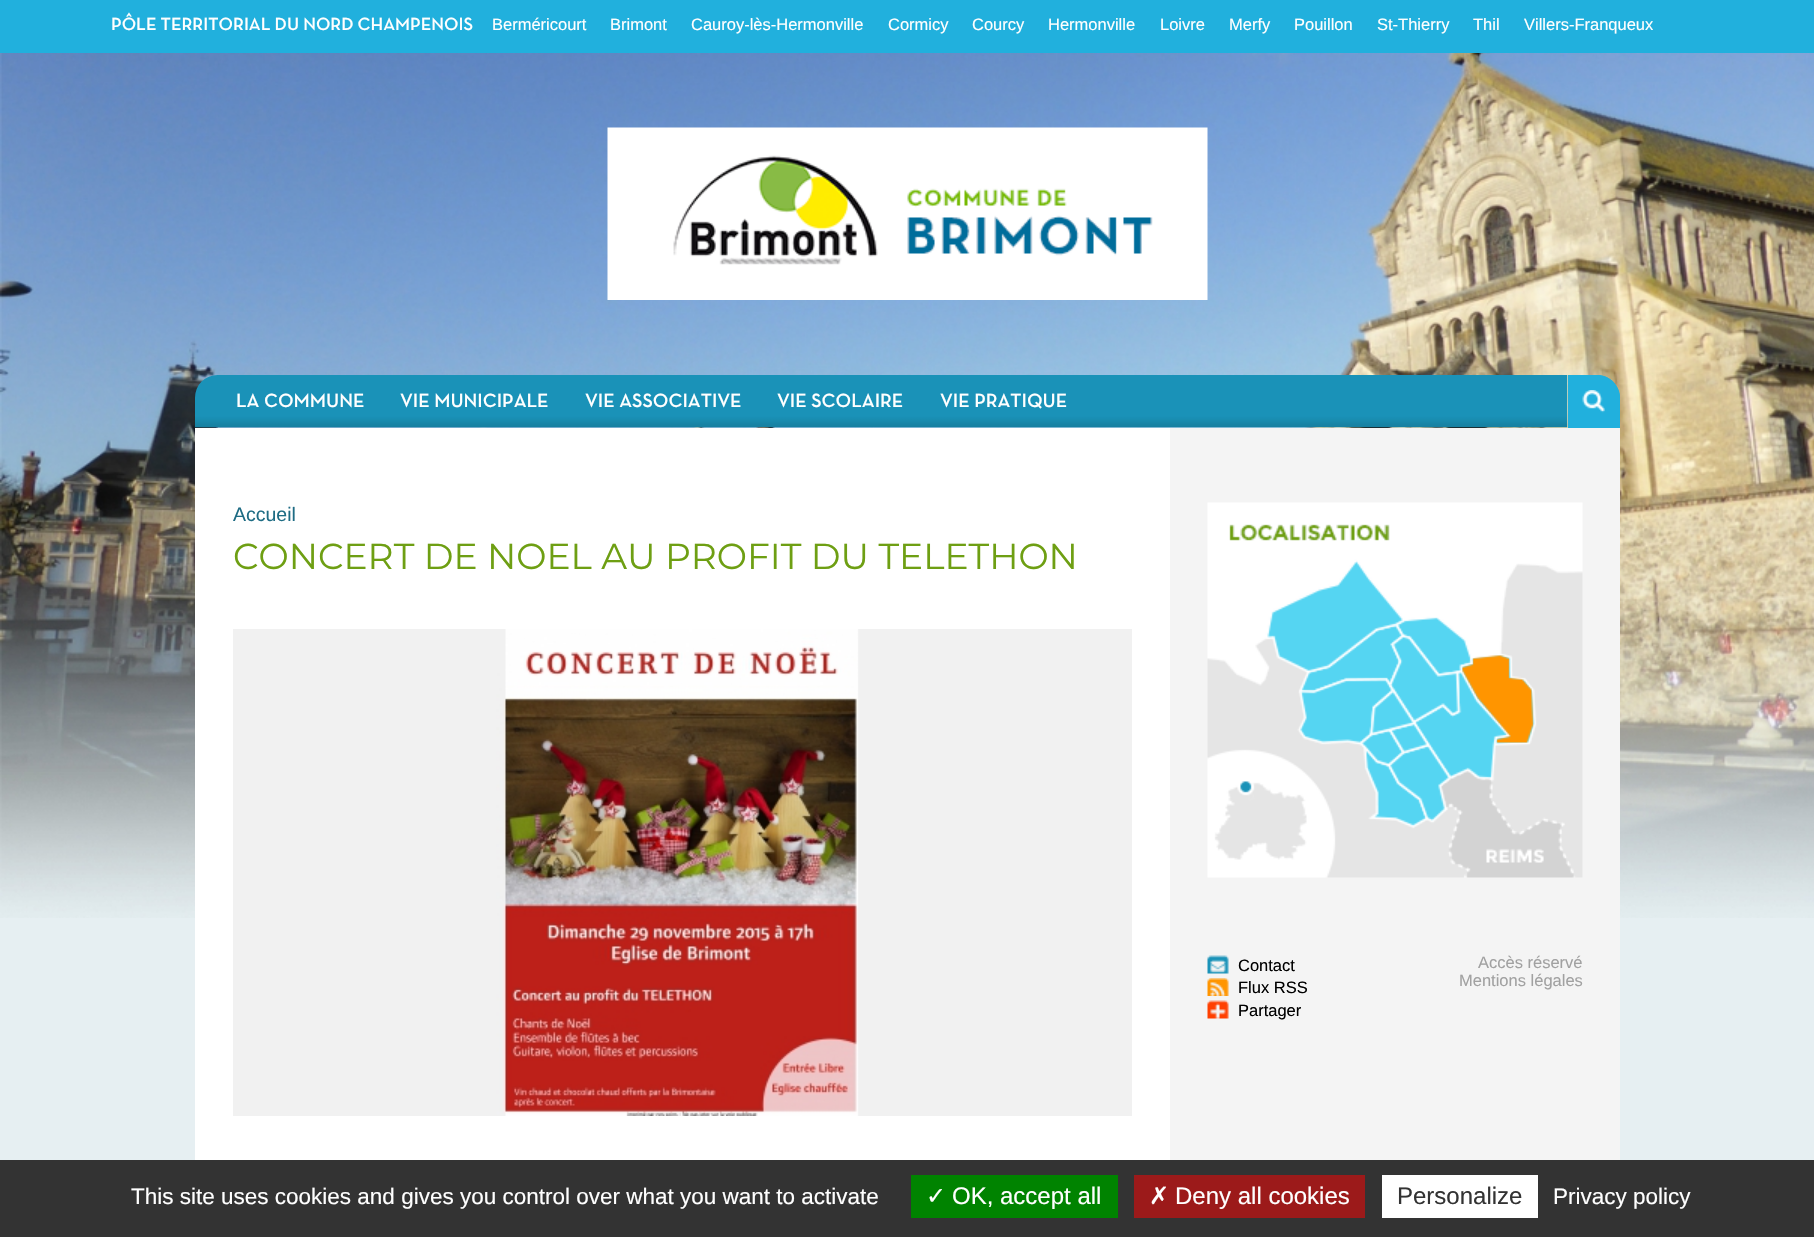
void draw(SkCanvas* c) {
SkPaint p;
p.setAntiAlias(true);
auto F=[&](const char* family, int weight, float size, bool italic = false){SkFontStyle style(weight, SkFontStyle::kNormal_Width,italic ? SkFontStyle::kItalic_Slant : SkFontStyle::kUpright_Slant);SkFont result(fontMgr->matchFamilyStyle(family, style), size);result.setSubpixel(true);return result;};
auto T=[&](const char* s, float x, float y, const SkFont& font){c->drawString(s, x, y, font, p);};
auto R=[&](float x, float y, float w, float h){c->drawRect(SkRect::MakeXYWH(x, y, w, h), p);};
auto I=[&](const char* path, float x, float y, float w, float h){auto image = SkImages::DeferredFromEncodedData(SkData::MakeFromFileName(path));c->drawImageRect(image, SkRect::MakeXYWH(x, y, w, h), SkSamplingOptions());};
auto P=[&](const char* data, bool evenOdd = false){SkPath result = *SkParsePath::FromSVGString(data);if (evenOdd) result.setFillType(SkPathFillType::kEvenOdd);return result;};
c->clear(0xffe6eff2);
p.setColor(0xff21b0dd);
R(0,0,1814,53);
auto f1 = F("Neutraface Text",600,18);
p.setColor(0xffffffff);
T("PÔLE TERRITORIAL DU NORD CHAMPENOIS",111,30,f1);
auto f2 = F("Liberation Sans",400,16.5);
T("Berméricourt",492,30,f2);
T("Brimont",610,30,f2);
T("Cauroy-lès-Hermonville",691,30,f2);
T("Cormicy",888,30,f2);
T("Courcy",972,30,f2);
T("Hermonville",1048,30,f2);
T("Loivre",1160,30,f2);
T("Merfy",1229,30,f2);
T("Pouillon",1294,30,f2);
T("St-Thierry",1377,30,f2);
T("Thil",1473,30,f2);
T("Villers-Franqueux",1524,30,f2);
I("1.png",0,53,1814,865);
I("2.png",607,127,601,173);
I("3.png",195,375,1373,53);
auto f3 = F("Neutraface Text",600,19.5);
T("LA COMMUNE",236,407,f3);
T("VIE MUNICIPALE",400,407,f3);
T("VIE ASSOCIATIVE",585,407,f3);
T("VIE SCOLAIRE",777,407,f3);
T("VIE PRATIQUE",940,407,f3);
p.setColor(0xff21b0dd);
c->drawPath(P("M1568 375h29c12.5 0 23 10.5 23 23v30h-52z"),p);
c->drawPath(P("M1583 375h14c12.5 0 23 10.5 23 23v15c0 8.5-6.5 15-15 15h-22c-8.5 0-15-6.5-15-15v-23c0-8.5 6.5-15 15-15z"),p);
I("4.png",1582,390,23,23);
p.setColor(0xffffffff);
R(195,428,975,732);
auto f4 = F("Liberation Sans",400,19.5);
p.setColor(0xff1e6c84);
T("Accueil",233,521,f4);
auto f5 = F("Montserrat",400,36);
p.setColor(0xff6e9f13);
T("CONCERT DE NOEL AU PROFIT DU TELETHON",233,569,f5);
I("5.png",233,629,899,487);
p.setColor(0xfff4f4f4);
R(1170,428,450,732);
I("6.png",1207,502,376,376);
I("7.png",1462,655,72,88);
I("8.png",1207,955,22,19);
p.setColor(0xff000000);
T("Contact",1238,971,f2);
I("9.png",1207,978,22,18);
T("Flux RSS",1238,993,f2);
I("10.png",1207,1000,22,19);
T("Partager",1238,1016,f2);
p.setColor(0xffa1a1a1);
T("Accès réservé",1478,968,f2);
T("Mentions légales",1459,986,f2);
p.setColor(0xff333333);
R(0,1160,1814,77);
auto f6 = F("Liberation Sans",400,22.5);
p.setColor(0xffffffff);
T("This site uses cookies and gives you control over what you want to activate",131,1204,f6);
p.setColor(0xff008300);
R(911,1175,207,43);
auto f7 = F("DejaVu Sans",400,24);
p.setColor(0xffffffff);
T("✓",926,1204,f7);
auto f8 = F("Liberation Sans",400,24);
T("OK, accept all",952,1204,f8);
p.setColor(0xff9c1a1a);
R(1134,1175,231,43);
p.setColor(0xffffffff);
T("✗",1149,1204,f7);
T("Deny all cookies",1175,1204,f8);
R(1382,1175,156,43);
p.setColor(0xff333333);
T("Personalize",1397,1204,f8);
p.setColor(0xffffffff);
T("Privacy policy",1553,1204,f6);
}
